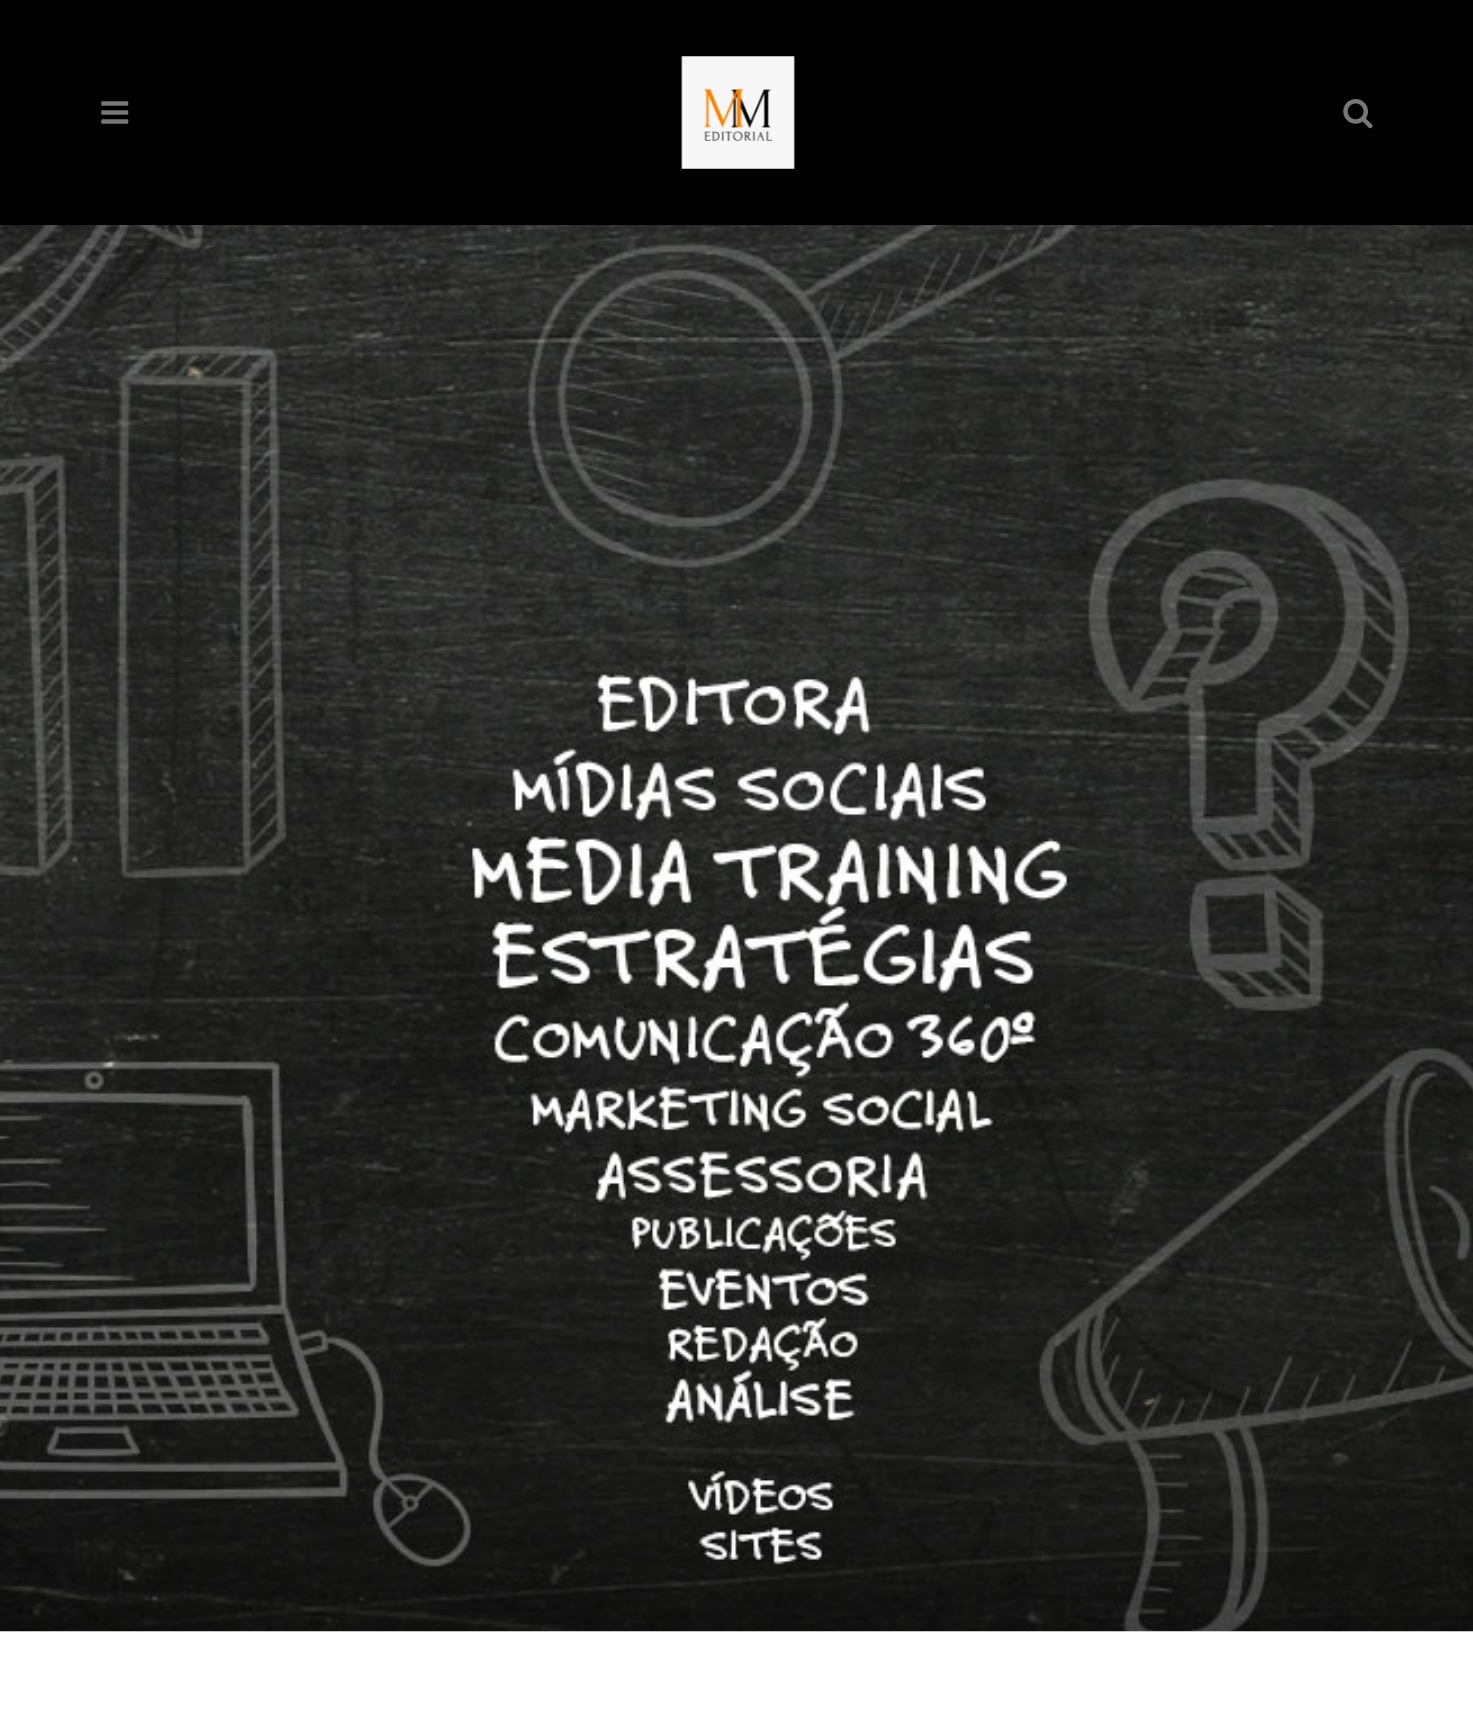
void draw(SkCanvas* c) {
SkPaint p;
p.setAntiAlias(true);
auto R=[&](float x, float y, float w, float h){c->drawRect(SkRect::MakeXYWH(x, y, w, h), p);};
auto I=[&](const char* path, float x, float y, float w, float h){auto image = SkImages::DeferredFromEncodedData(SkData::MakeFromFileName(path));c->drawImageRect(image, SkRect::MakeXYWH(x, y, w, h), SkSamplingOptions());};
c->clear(0xffffffff);
p.setColor(0xff000000);
R(0,0,1473,225);
I("1.png",101,101,28,23);
I("2.png",681,56,114,113);
I("3.png",1343,99,30,30);
I("4.png",0,225,1473,1407);
}
